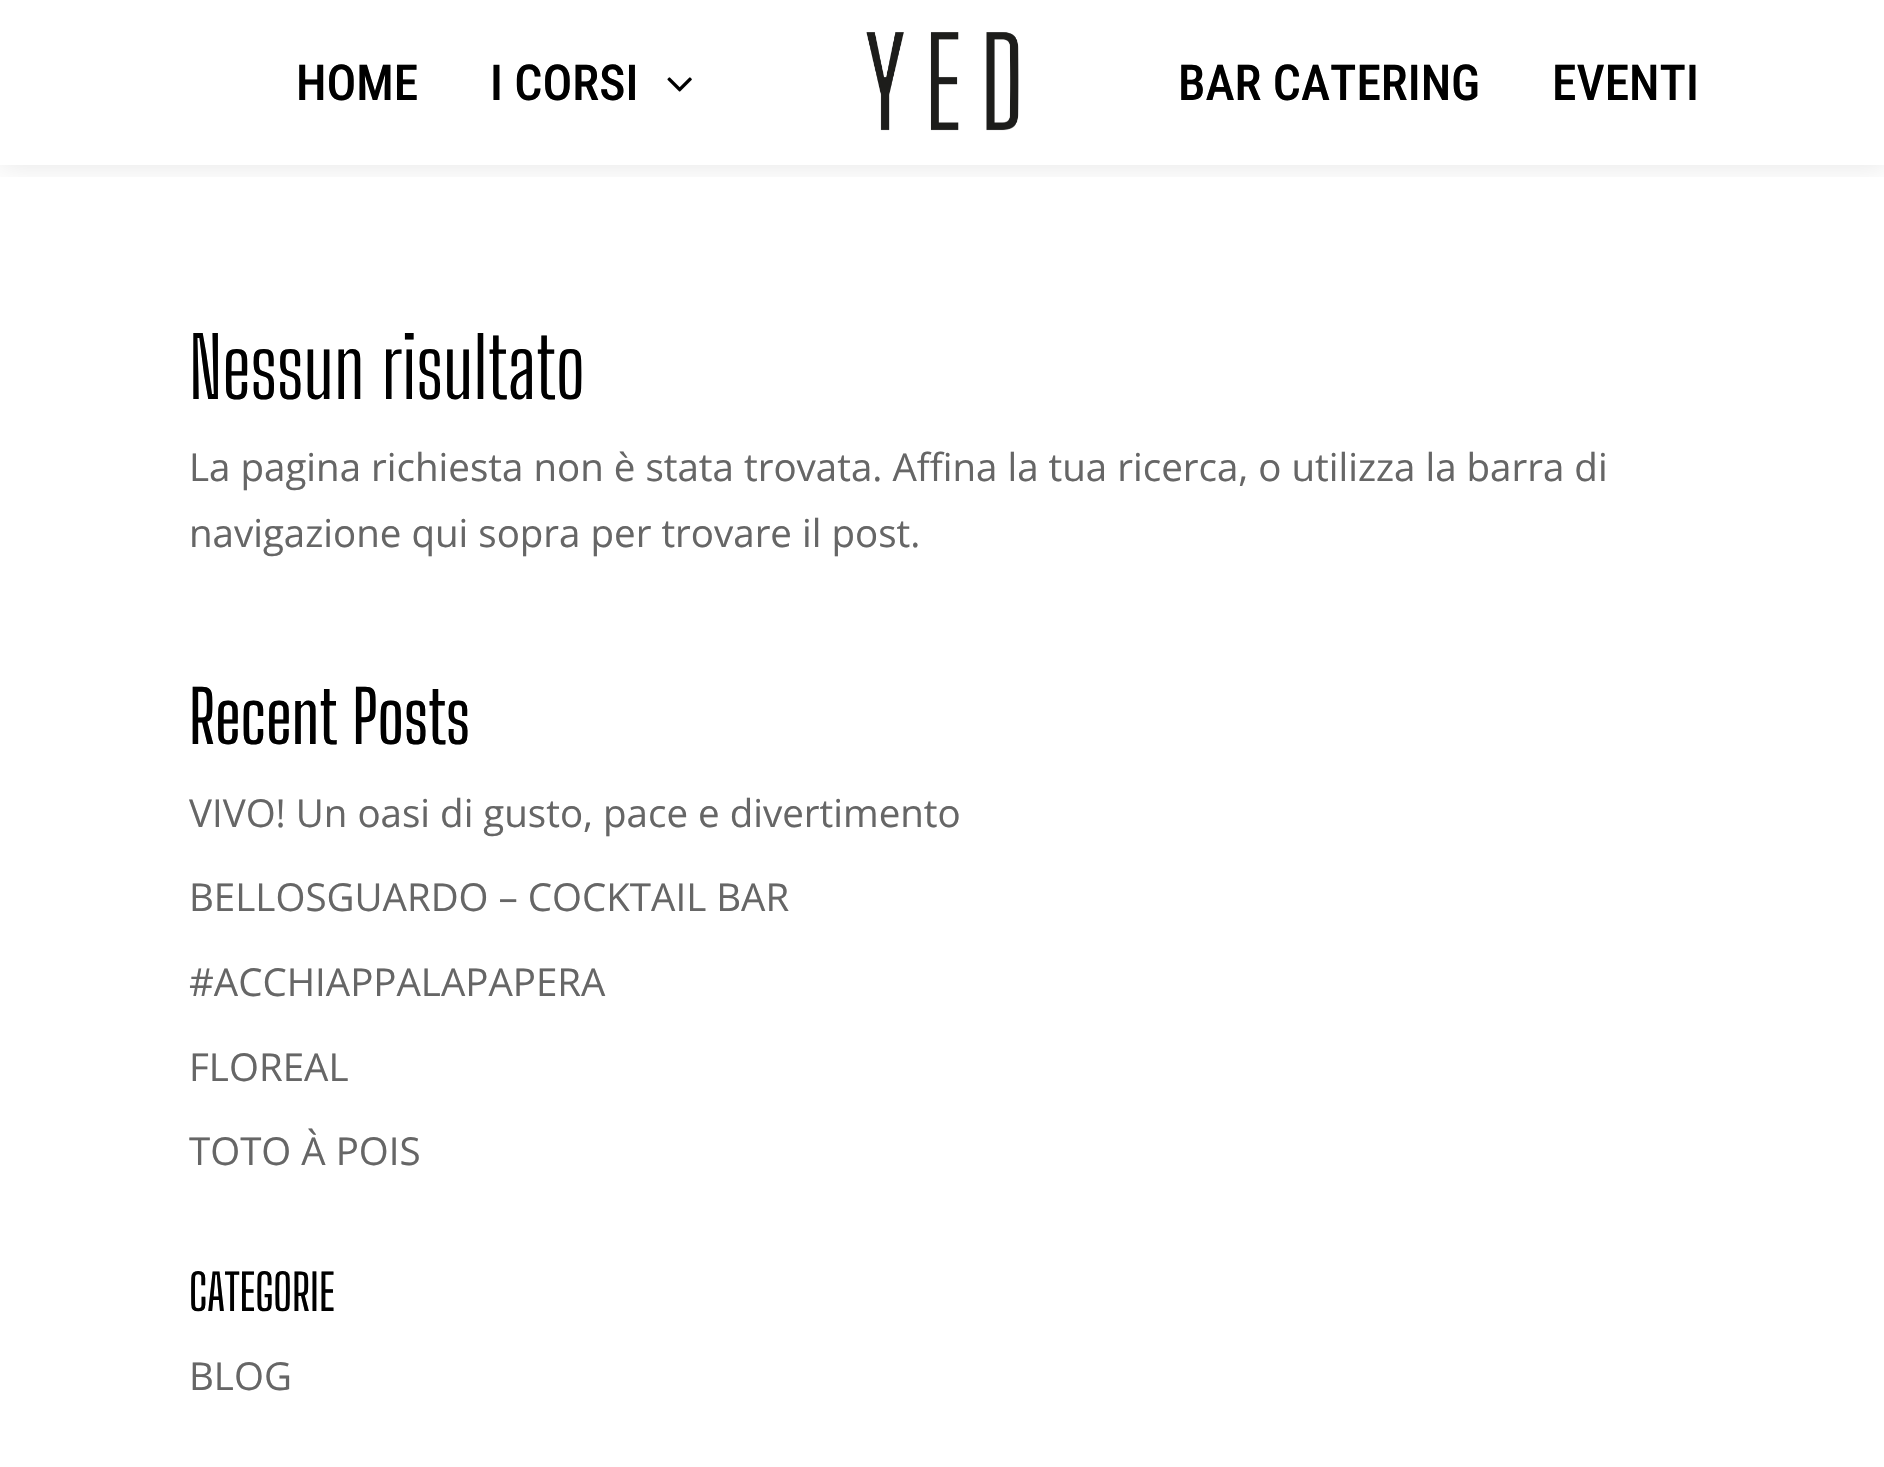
void draw(SkCanvas* c) {
SkPaint p;
p.setAntiAlias(true);
auto F=[&](const char* family, int weight, float size, bool italic = false){SkFontStyle style(weight, SkFontStyle::kNormal_Width,italic ? SkFontStyle::kItalic_Slant : SkFontStyle::kUpright_Slant);SkFont result(fontMgr->matchFamilyStyle(family, style), size);result.setSubpixel(true);return result;};
auto T=[&](const char* s, float x, float y, const SkFont& font){c->drawString(s, x, y, font, p);};
auto I=[&](const char* path, float x, float y, float w, float h){auto image = SkImages::DeferredFromEncodedData(SkData::MakeFromFileName(path));c->drawImageRect(image, SkRect::MakeXYWH(x, y, w, h), SkSamplingOptions());};
c->clear(0xffffffff);
c->save();
c->clipRect(SkRect::MakeXYWH(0,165,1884,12));
p.setColor(0x1a000000);
p.setMaskFilter(SkMaskFilter::MakeBlur(kNormal_SkBlurStyle, 14));
c->drawRect(SkRect::MakeXYWH(0,0,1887,165),p);
p.setMaskFilter(nullptr);
c->restore();
I("1.png",866,32,153,99);
auto f1 = F("Roboto Condensed",500,49.5);
p.setColor(0xff000000);
T("HOME",296,100,f1);
T("I CORSI",490,100,f1);
I("2.png",667,77,25,15);
T("BAR CATERING",1178,100,f1);
T("EVENTI",1552,100,f1);
auto f2 = F("Big Shoulders Display",400,82.5);
T("Nessun risultato",189,399,f2);
auto f3 = F("Open Sans",400,38.5);
p.setColor(0xff666666);
T("La pagina richiesta non è stata trovata. Affina la tua ricerca, o utilizza la barra di",189,481,f3);
T("navigazione qui sopra per trovare il post.",189,547,f3);
auto f4 = F("Big Shoulders Display",500,71.5);
p.setColor(0xff000000);
T("Recent Posts",189,744,f4);
p.setColor(0xff666666);
T("VIVO! Un oasi di gusto, pace e divertimento",189,827,f3);
T("BELLOSGUARDO – COCKTAIL BAR",189,911,f3);
T("#ACCHIAPPALAPAPERA",189,996,f3);
T("FLOREAL",189,1081,f3);
T("TOTO À POIS",189,1165,f3);
auto f5 = F("Big Shoulders Display",500,49.5);
p.setColor(0xff000000);
T("CATEGORIE",189,1311,f5);
p.setColor(0xff666666);
T("BLOG",189,1390,f3);
}
